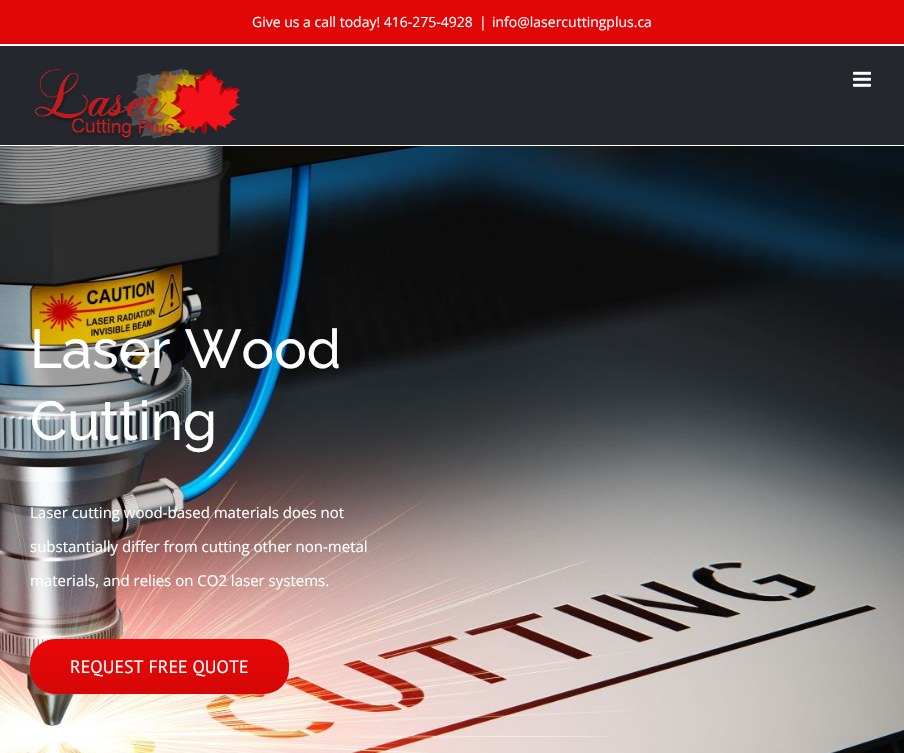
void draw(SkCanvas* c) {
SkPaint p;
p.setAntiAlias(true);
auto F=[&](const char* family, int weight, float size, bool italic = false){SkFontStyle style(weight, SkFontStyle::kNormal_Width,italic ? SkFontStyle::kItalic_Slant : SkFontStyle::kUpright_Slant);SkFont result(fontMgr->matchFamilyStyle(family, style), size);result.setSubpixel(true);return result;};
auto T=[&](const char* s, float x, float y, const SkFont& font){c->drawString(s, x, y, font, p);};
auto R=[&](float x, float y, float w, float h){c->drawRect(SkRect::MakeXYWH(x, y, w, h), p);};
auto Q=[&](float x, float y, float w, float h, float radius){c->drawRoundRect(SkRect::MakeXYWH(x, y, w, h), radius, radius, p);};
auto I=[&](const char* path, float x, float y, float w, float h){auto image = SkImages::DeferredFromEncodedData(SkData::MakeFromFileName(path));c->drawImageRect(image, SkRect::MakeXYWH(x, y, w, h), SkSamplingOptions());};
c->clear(0xffffffff);
p.setColor(0xffe10707);
R(0,0,904,44);
auto f1 = F("Open Sans",400,14);
p.setColor(0xffffffff);
T("Give us a call today! 416-275-4928",252,27,f1);
T("|",479,27,f1);
T("info@lasercuttingplus.ca",492,27,f1);
p.setColor(0xff24272d);
R(0,46,904,99);
I("1.png",34,68,206,73);
I("2.png",853,71,18,16);
I("3.png",0,146,904,607);
auto f2 = F("Raleway",500,54.5);
p.setColor(0xffffffff);
T("Laser Wood",30,368,f2);
T("Cutting",30,440,f2);
auto f3 = F("Open Sans",400,15);
T("Laser cutting wood-based materials does not",30,518,f3);
T("substantially differ from cutting other non-metal",30,552,f3);
T("materials, and relies on CO2 laser systems.",30,586,f3);
{
const SkColor colors[] = {0xffd60707,0xffe80707};
const float stops[] = {0,1};
const SkPoint ends[] = {{160,694}, {160,639}};
p.setShader(SkGradientShader::MakeLinear(ends, colors, stops, 2, SkTileMode::kClamp));
p.setAlpha(255);
}
Q(30,639,259,55,25);
auto f4 = F("PT Sans",400,18);
p.setShader(nullptr);
p.setColor(0xffffffff);
T("REQUEST FREE QUOTE",70,673,f4);
}
